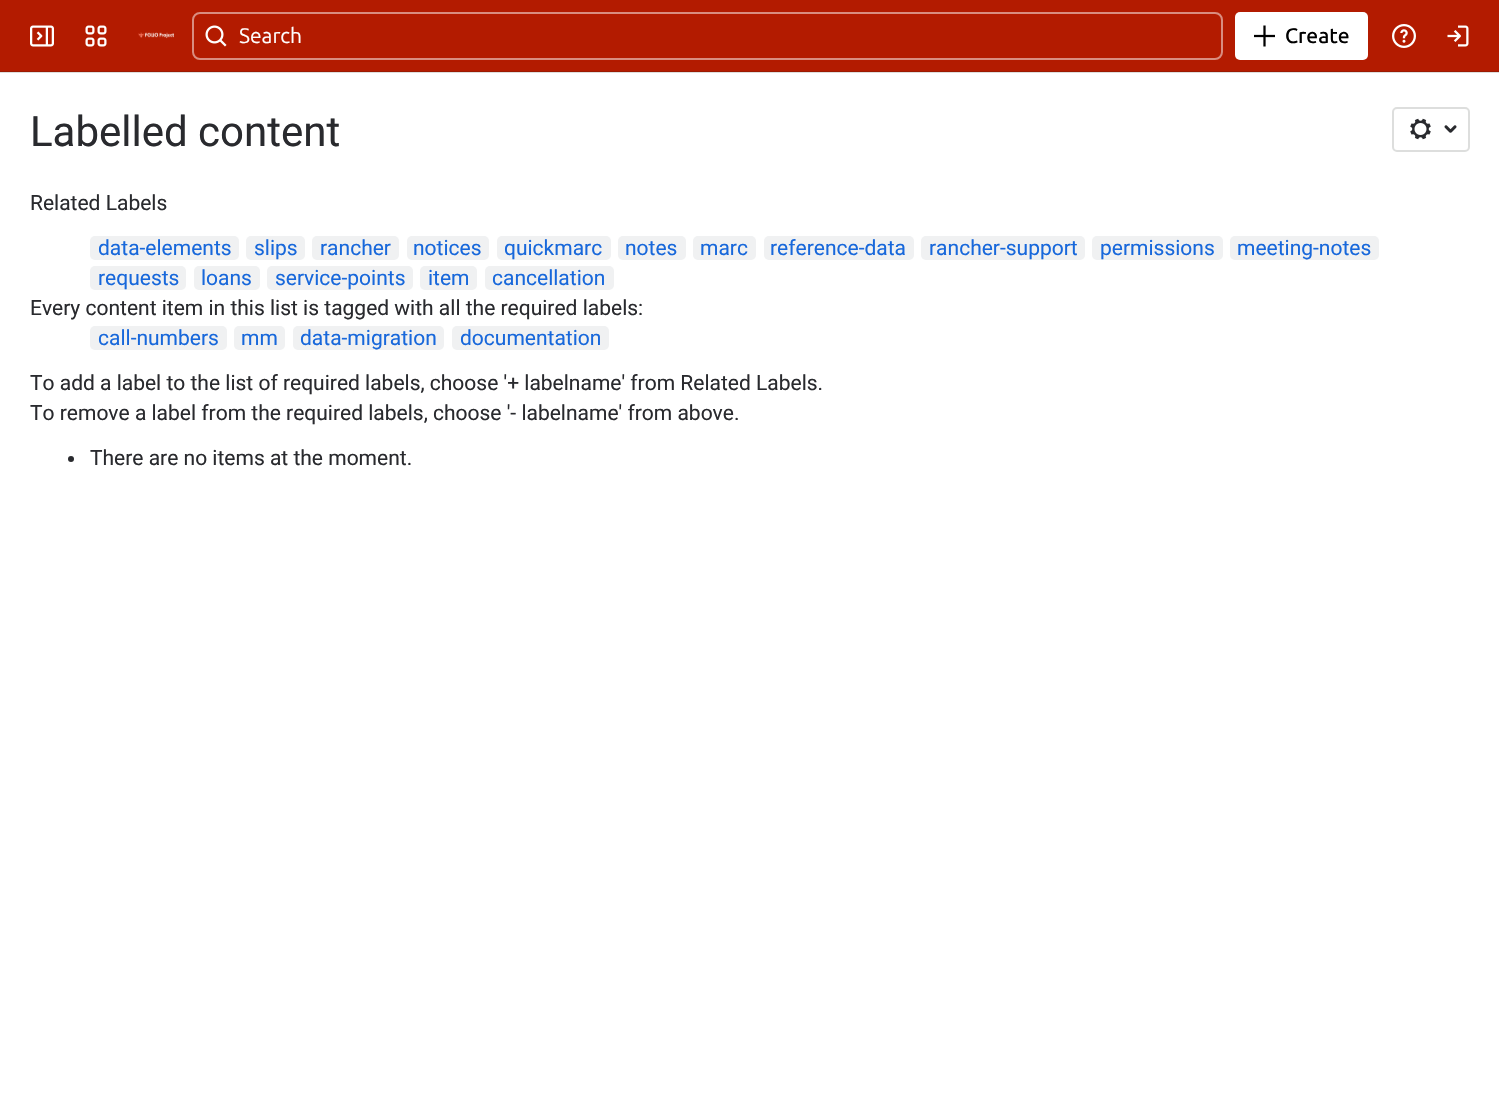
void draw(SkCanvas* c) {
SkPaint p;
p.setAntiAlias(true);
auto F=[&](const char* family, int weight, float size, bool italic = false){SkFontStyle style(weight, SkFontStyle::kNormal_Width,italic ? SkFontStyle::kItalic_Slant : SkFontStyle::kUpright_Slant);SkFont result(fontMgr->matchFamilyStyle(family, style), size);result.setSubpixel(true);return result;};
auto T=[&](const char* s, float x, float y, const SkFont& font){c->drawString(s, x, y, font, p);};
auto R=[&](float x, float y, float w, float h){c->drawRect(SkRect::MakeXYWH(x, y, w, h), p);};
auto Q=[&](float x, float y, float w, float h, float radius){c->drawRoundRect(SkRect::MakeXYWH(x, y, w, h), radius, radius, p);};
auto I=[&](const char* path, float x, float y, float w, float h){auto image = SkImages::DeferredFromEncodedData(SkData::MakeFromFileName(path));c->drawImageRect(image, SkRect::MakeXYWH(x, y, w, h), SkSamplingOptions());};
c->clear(0xffffffff);
p.setColor(0xffdddedd);
R(0,72,1499,1);
p.setColor(0xffb31b00);
R(0,0,1499,71);
p.setColor(0xff9b1a02);
R(0,71,1499,1);
I("1.png",30,25,24,22);
I("2.png",85,25,22,22);
I("3.png",138,32,36,7);
p.setStroke(true);
p.setStrokeWidth(2);
p.setColor(0xffd98d80);
c->drawRoundRect(SkRect::MakeXYWH(193,13,1029,46),7,7,p);
I("4.png",205,25,22,22);
auto f1 = F("Ubuntu",400,21);
p.setStroke(false);
p.setColor(0xffffffff);
T("Search",239,43,f1);
Q(1235,12,133,48,5);
I("5.png",1254,25,21,22);
auto f2 = F("Ubuntu",500,21);
p.setColor(0xff000000);
T("Create",1285,43,f2);
I("6.png",1392,24,24,24);
I("7.png",1447,25,22,22);
auto f3 = F("Roboto",400,42);
p.setColor(0xff292a2e);
T("Labelled content",30,146,f3);
p.setStroke(true);
p.setColor(0xffdddedd);
c->drawRoundRect(SkRect::MakeXYWH(1393,108,76,43),4,4,p);
I("8.png",1410,118,21,22);
I("9.png",1444,125,13,8);
auto f4 = F("Roboto",400,21);
p.setStroke(false);
p.setColor(0xff292a2e);
T("Related Labels",30,210,f4);
p.setColor(0xfff0f1f2);
Q(90,236,149,24,5);
p.setColor(0xff1868db);
T("data-elements",98,255,f4);
p.setColor(0xfff0f1f2);
Q(246,236,59,24,5);
p.setColor(0xff1868db);
T("slips",254,255,f4);
p.setColor(0xfff0f1f2);
Q(312,236,87,24,5);
p.setColor(0xff1868db);
T("rancher",320,255,f4);
p.setColor(0xfff0f1f2);
Q(407,236,82,24,5);
p.setColor(0xff1868db);
T("notices",413,255,f4);
p.setColor(0xfff0f1f2);
Q(497,236,114,24,5);
p.setColor(0xff1868db);
T("quickmarc",504,255,f4);
p.setColor(0xfff0f1f2);
Q(618,236,68,24,5);
p.setColor(0xff1868db);
T("notes",625,255,f4);
p.setColor(0xfff0f1f2);
Q(693,236,63,24,5);
p.setColor(0xff1868db);
T("marc",700,255,f4);
p.setColor(0xfff0f1f2);
Q(764,236,150,24,5);
p.setColor(0xff1868db);
T("reference-data",770,255,f4);
p.setColor(0xfff0f1f2);
Q(921,236,164,24,5);
p.setColor(0xff1868db);
T("rancher-support",929,255,f4);
p.setColor(0xfff0f1f2);
Q(1092,236,131,24,5);
p.setColor(0xff1868db);
T("permissions",1100,255,f4);
p.setColor(0xfff0f1f2);
Q(1230,236,149,24,5);
p.setColor(0xff1868db);
T("meeting-notes",1237,255,f4);
p.setColor(0xfff0f1f2);
Q(90,266,96,24,5);
p.setColor(0xff1868db);
T("requests",98,285,f4);
p.setColor(0xfff0f1f2);
Q(194,266,66,24,5);
p.setColor(0xff1868db);
T("loans",201,285,f4);
p.setColor(0xfff0f1f2);
Q(267,266,146,24,5);
p.setColor(0xff1868db);
T("service-points",275,285,f4);
p.setColor(0xfff0f1f2);
Q(420,266,57,24,5);
p.setColor(0xff1868db);
T("item",428,285,f4);
p.setColor(0xfff0f1f2);
Q(485,266,129,24,5);
p.setColor(0xff1868db);
T("cancellation",492,285,f4);
p.setColor(0xff292a2e);
T("Every content item in this list is tagged with all the required labels:",30,315,f4);
p.setColor(0xfff0f1f2);
Q(90,326,137,24,5);
p.setColor(0xff1868db);
T("call-numbers",98,345,f4);
p.setColor(0xfff0f1f2);
Q(234,326,51,24,5);
p.setColor(0xff1868db);
T("mm",241,345,f4);
p.setColor(0xfff0f1f2);
Q(293,326,151,24,5);
p.setColor(0xff1868db);
T("data-migration",300,345,f4);
p.setColor(0xfff0f1f2);
Q(452,326,157,24,5);
p.setColor(0xff1868db);
T("documentation",460,345,f4);
p.setColor(0xff292a2e);
T("To add a label to the list of required labels, choose '+ labelname' from Related Labels.",30,390,f4);
T("To remove a label from the required labels, choose '- labelname' from above.",30,420,f4);
c->drawCircle(71,459,3,p);
T("There are no items at the moment.",90,465,f4);
}
